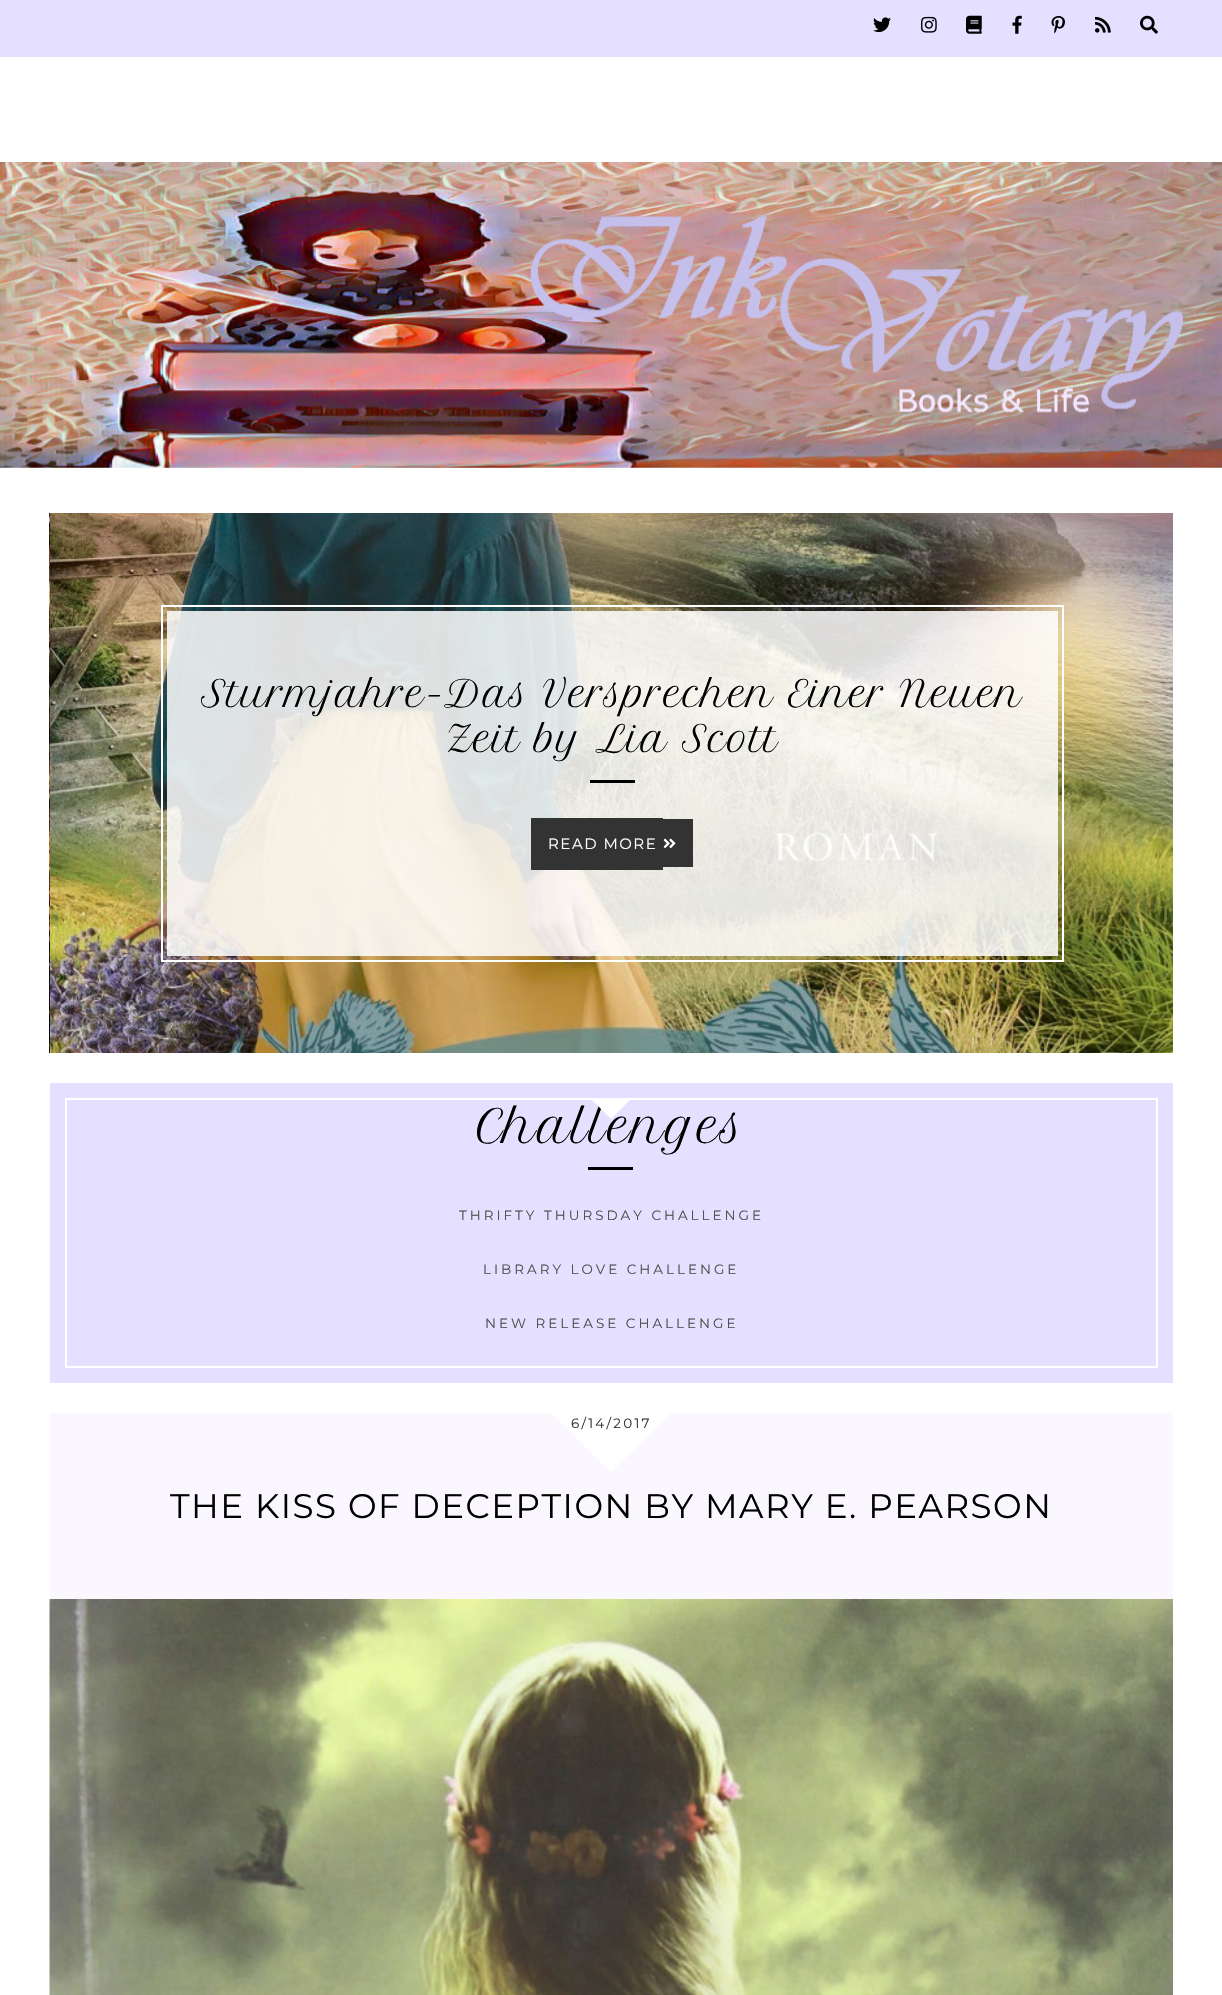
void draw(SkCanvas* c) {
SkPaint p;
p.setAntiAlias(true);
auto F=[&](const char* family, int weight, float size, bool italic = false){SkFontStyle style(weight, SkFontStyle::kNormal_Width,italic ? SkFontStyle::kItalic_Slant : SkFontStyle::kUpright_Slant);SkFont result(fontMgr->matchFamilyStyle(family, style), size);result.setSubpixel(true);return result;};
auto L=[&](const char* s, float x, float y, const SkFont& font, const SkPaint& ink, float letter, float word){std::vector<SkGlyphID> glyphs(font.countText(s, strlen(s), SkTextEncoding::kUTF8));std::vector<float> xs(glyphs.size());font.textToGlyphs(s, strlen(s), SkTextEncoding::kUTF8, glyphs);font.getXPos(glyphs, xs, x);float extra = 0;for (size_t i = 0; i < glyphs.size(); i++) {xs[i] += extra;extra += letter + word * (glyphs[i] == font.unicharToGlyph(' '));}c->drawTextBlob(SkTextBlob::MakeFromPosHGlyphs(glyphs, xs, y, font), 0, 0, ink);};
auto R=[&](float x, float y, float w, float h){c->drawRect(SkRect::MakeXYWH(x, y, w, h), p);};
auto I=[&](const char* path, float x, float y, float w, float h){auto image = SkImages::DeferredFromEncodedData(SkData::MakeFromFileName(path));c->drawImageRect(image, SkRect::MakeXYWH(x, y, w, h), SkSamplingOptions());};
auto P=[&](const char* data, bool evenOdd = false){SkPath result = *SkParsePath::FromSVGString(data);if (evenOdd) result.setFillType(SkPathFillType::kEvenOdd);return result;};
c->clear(0xffffffff);
p.setColor(0xffe5e0ff);
R(0,0,1222,57);
I("1.png",873,17,18,16);
I("2.png",921,16,16,17);
I("3.png",966,15,16,19);
I("4.png",1012,15,10,19);
I("5.png",1051,16,14,18);
I("6.png",1095,16,16,17);
I("7.png",1140,15,18,19);
I("8.png",0,162,1222,306);
I("9.png",49,513,1,540);
I("10.png",50,513,1123,540);
p.setColor(0xd9ffffff);
R(167,611,891,345);
p.setStroke(true);
p.setStrokeWidth(2);
p.setColor(0xffffffff);
c->drawRect(SkRect::MakeXYWH(162,606,901,355),p);
auto f1 = F("Petit Formal Script",400,36);
p.setStroke(false);
p.setColor(0xff000000);
L("Sturmjahre-Das Versprechen Einer Neuen",201,707,f1,p,.75,0);
L("Zeit by Lia Scott",446,752,f1,p,.75,0);
R(590,780,45,3);
p.setColor(0xff333333);
R(531,818,132,52);
R(663,819,30,48);
auto f2 = F("Montserrat",100,15);
p.setColor(0xffffffff);
L("READ MORE",548,849,f2,p,1.5,0);
I("11.png",663,838,13,10);
p.setColor(0xffe5e0ff);
R(50,1083,1123,300);
p.setStroke(true);
p.setColor(0xffffffff);
c->drawRect(SkRect::MakeXYWH(66,1099,1091,268),p);
auto f3 = F("Petit Formal Script",400,45);
p.setStroke(false);
p.setColor(0xff000000);
L("Challenges",477,1143,f3,p,1.5,0);
{
const SkColor colors[] = {0xffffffff,0x00ffffff};
const float stops[] = {.5,.5};
const SkPoint ends[] = {{611,1119}, {611,1076}};
p.setShader(SkGradientShader::MakeLinear(ends, colors, stops, 2, SkTileMode::kClamp));
p.setAlpha(255);
}
c->drawPath(P("M590 1098l21-22l21 22l-21 21z"),p);
p.setShader(nullptr);
p.setColor(0xff000000);
R(588,1167,45,3);
auto f4 = F("Montserrat",100,13.5);
p.setColor(0xff4f4f4f);
L("THRIFTY THURSDAY CHALLENGE",459,1220,f4,p,3,0);
L("LIBRARY LOVE CHALLENGE",483,1274,f4,p,3,0);
L("NEW RELEASE CHALLENGE",485,1328,f4,p,3,0);
p.setColor(0xfffaf7ff);
R(50,1413,1123,186);
{
const SkColor colors[] = {0xffffffff,0x00ffffff};
const float stops[] = {.5,.5};
const SkPoint ends[] = {{611,1472}, {611,1341}};
p.setShader(SkGradientShader::MakeLinear(ends, colors, stops, 2, SkTileMode::kClamp));
p.setAlpha(255);
}
c->drawPath(P("M545 1407l66-66l66 66l-66 65z"),p);
p.setShader(nullptr);
p.setColor(0xff333333);
L("6/14/2017",571,1428,f4,p,2.25,0);
auto f5 = F("Montserrat",100,34.1);
p.setColor(0xff000000);
L("THE KISS OF DECEPTION BY MARY E. PEARSON",170,1518,f5,p,1.5,0);
I("12.png",49,1599,1124,396);
}
